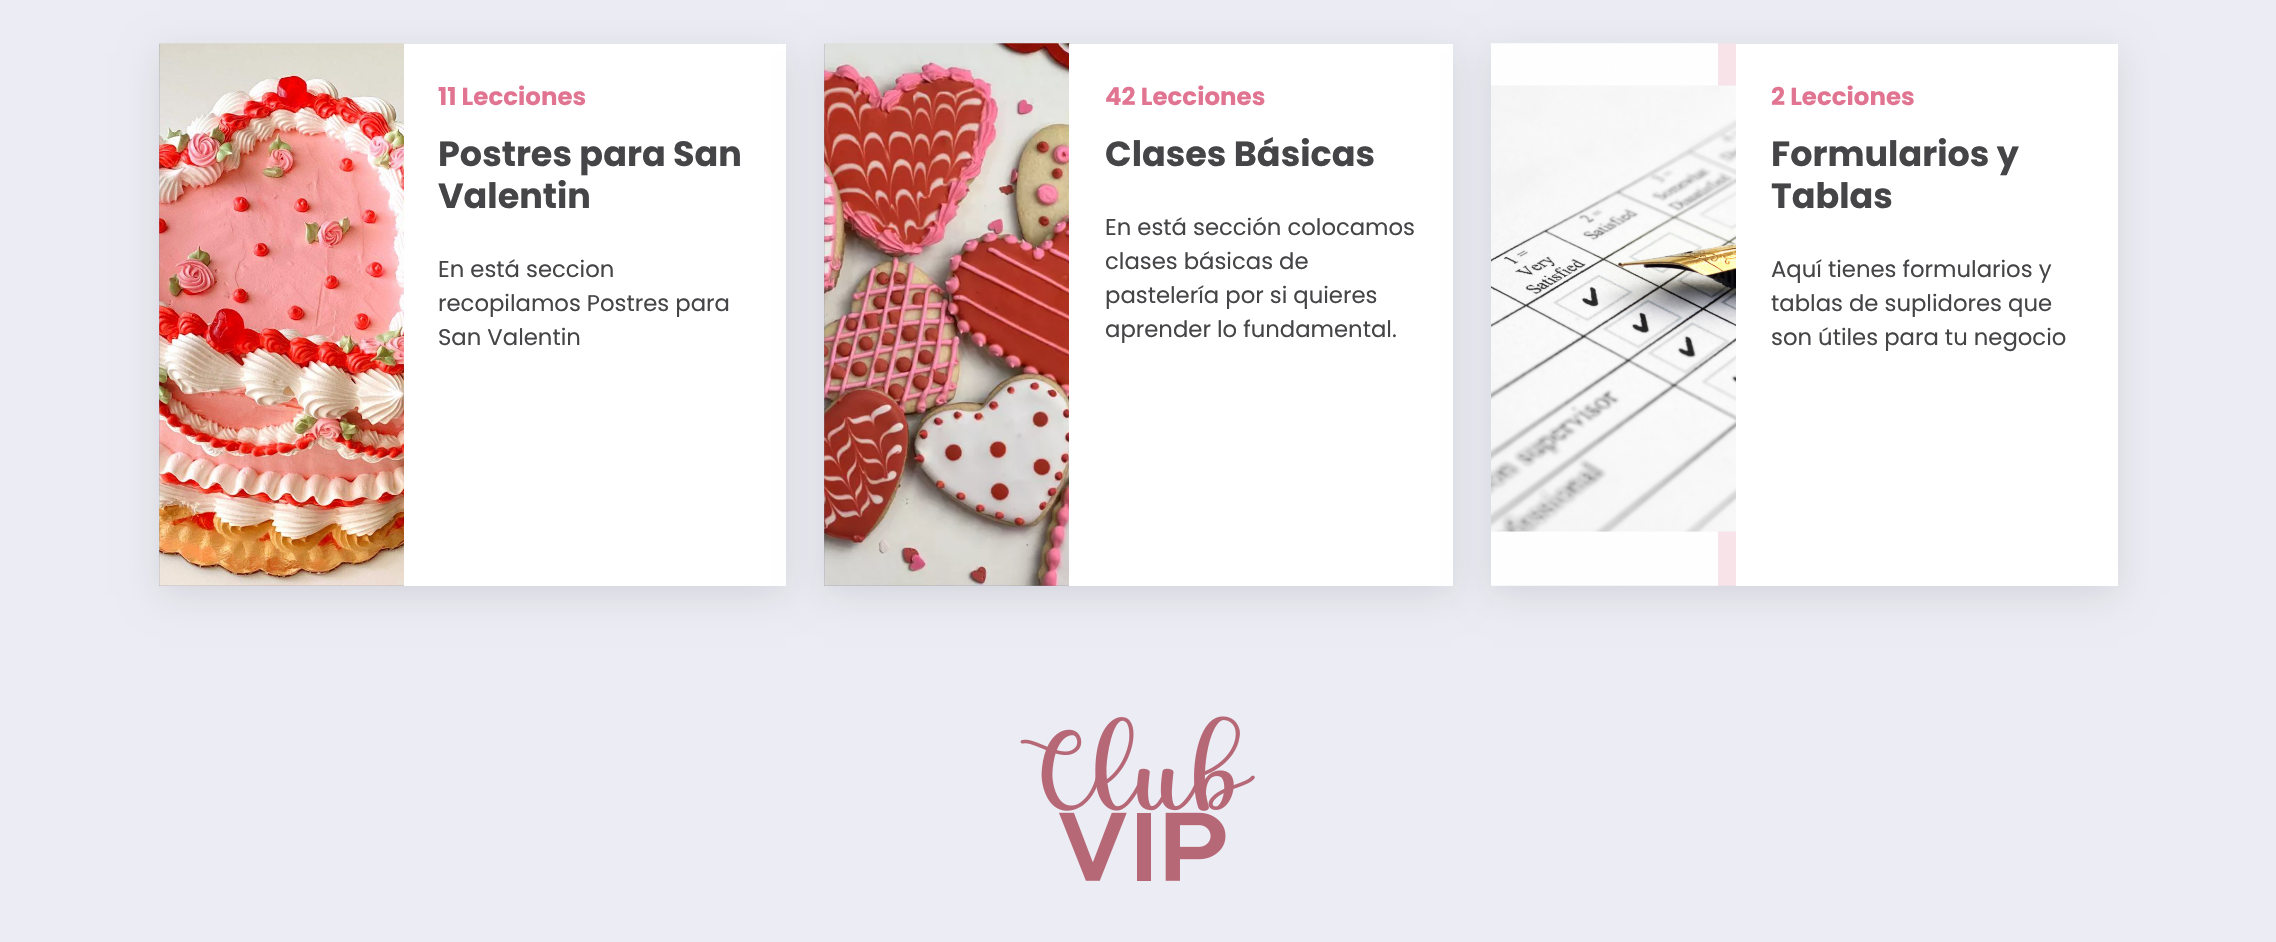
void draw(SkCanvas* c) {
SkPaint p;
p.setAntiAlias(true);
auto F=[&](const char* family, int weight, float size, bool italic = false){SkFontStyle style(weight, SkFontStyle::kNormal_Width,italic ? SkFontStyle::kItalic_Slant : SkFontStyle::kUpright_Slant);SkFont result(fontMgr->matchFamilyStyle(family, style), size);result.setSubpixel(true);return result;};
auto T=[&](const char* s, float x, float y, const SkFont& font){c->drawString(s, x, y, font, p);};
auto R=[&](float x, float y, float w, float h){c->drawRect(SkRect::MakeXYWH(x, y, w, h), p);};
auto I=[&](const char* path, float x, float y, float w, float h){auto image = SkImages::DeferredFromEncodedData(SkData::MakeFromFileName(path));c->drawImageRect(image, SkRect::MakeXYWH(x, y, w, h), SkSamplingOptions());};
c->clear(0xffecedf4);
p.setColor(0x1a000000);
p.setMaskFilter(SkMaskFilter::MakeBlur(kNormal_SkBlurStyle, 17.5));
c->drawRect(SkRect::MakeXYWH(159,53,627,542),p);
p.setMaskFilter(nullptr);
p.setColor(0xff898c9f);
R(159,44,245,542);
I("1.png",159,43,246,543);
p.setColor(0xffffffff);
R(404,44,382,542);
auto f1 = F("Poppins",700,24.5);
p.setColor(0xffe17491);
T("11 Lecciones",438,105,f1);
auto f2 = F("Poppins",700,35);
p.setColor(0xff454447);
T("Postres para San",438,166,f2);
T("Valentin",438,208,f2);
auto f3 = F("Poppins",400,22.75);
T("En está seccion",438,277,f3);
T("recopilamos Postres para",438,311,f3);
T("San Valentin",438,345,f3);
p.setColor(0x1a000000);
p.setMaskFilter(SkMaskFilter::MakeBlur(kNormal_SkBlurStyle, 17.5));
c->drawRect(SkRect::MakeXYWH(824,53,629,542),p);
p.setMaskFilter(nullptr);
p.setColor(0xff898c9f);
R(824,44,245,542);
I("2.png",824,43,246,543);
p.setColor(0xffffffff);
R(1069,44,384,542);
p.setColor(0xffe17491);
T("42 Lecciones",1105,105,f1);
p.setColor(0xff454447);
T("Clases Básicas",1105,166,f2);
T("En está sección colocamos",1105,235,f3);
T("clases básicas de",1105,269,f3);
T("pastelería por si quieres",1105,303,f3);
T("aprender lo fundamental.",1105,337,f3);
p.setColor(0x1a000000);
p.setMaskFilter(SkMaskFilter::MakeBlur(kNormal_SkBlurStyle, 17.5));
c->drawRect(SkRect::MakeXYWH(1491,53,627,542),p);
p.setMaskFilter(nullptr);
I("3.png",1491,43,245,543);
p.setColor(0xffffffff);
R(1736,44,382,542);
p.setColor(0xffe17491);
T("2 Lecciones",1771,105,f1);
p.setColor(0xff454447);
T("Formularios y",1771,166,f2);
T("Tablas",1771,208,f2);
T("Aquí tienes formularios y",1771,277,f3);
T("tablas de suplidores que",1771,311,f3);
T("son útiles para tu negocio",1771,345,f3);
I("4.png",1020,716,235,165);
}
